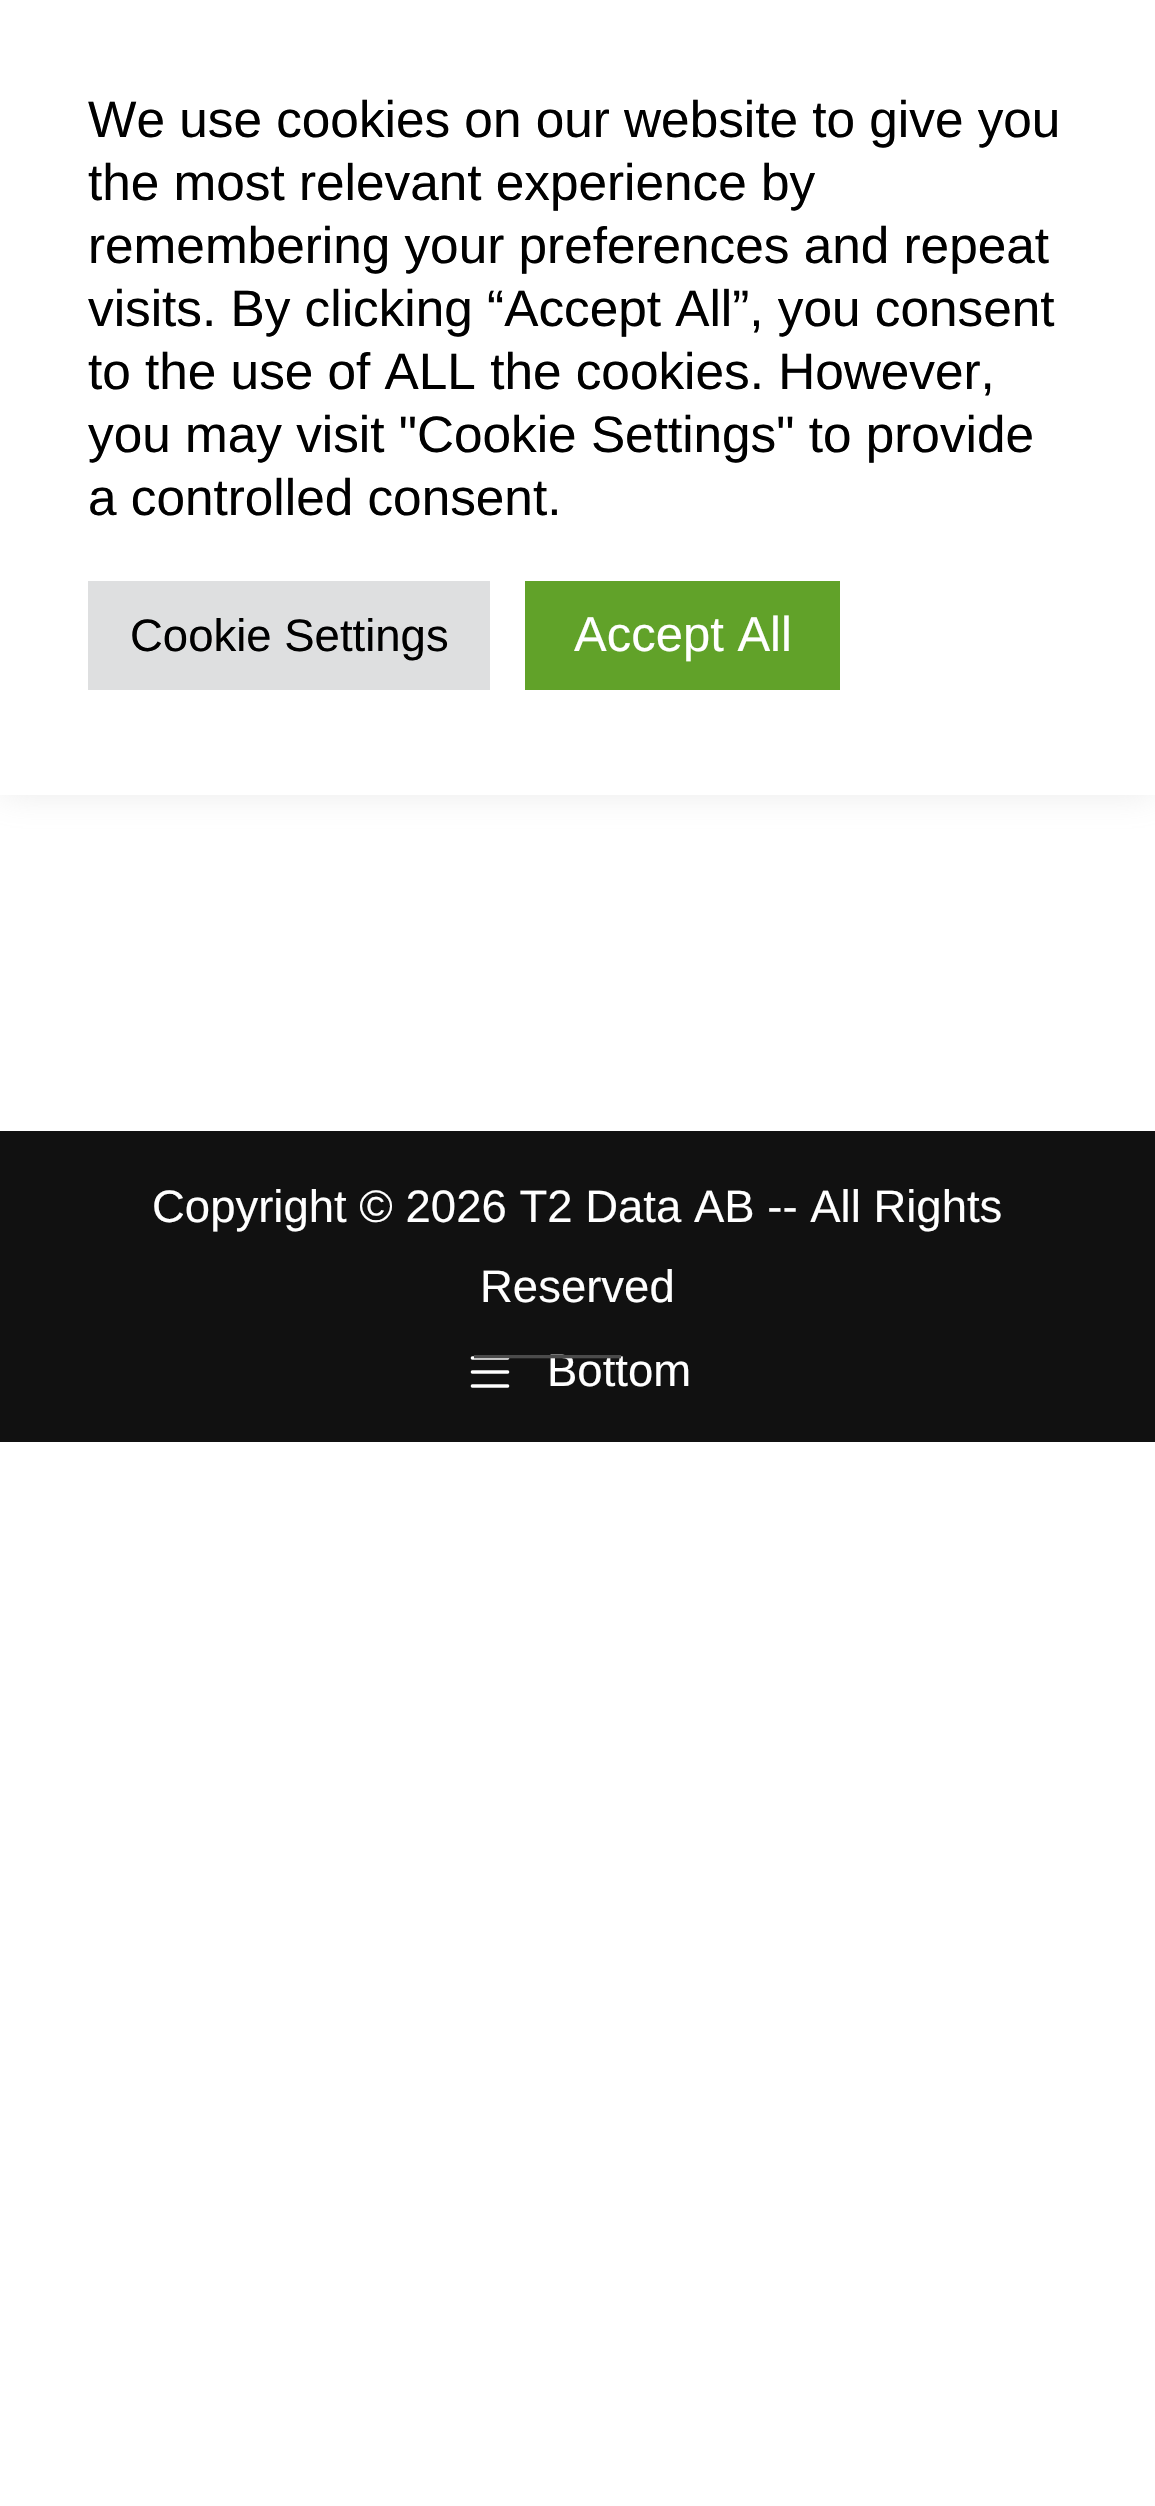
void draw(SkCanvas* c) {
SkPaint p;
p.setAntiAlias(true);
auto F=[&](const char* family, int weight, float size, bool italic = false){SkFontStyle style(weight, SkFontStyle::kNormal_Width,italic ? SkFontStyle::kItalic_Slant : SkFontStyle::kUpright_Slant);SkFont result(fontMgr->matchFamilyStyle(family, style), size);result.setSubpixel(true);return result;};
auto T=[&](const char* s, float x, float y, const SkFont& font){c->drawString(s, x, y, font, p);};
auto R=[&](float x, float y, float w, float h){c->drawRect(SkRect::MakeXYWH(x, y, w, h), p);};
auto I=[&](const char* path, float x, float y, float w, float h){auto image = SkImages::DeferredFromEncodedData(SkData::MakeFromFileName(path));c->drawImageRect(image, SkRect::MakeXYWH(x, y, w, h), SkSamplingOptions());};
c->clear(0xffffffff);
p.setColor(0x4dacabab);
p.setMaskFilter(SkMaskFilter::MakeBlur(kNormal_SkBlurStyle, 17.5));
c->drawRect(SkRect::MakeXYWH(0,-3,1155,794),p);
p.setMaskFilter(nullptr);
p.setColor(0xffffffff);
R(0,0,1155,795);
auto f1 = F("Liberation Sans",400,51.3);
p.setColor(0xff000000);
T("We use cookies on our website to give you",88,137,f1);
T("the most relevant experience by",88,200,f1);
T("remembering your preferences and repeat",88,263,f1);
T("visits. By clicking “Accept All”, you consent",88,326,f1);
T("to the use of ALL the cookies. However,",88,389,f1);
T("you may visit \"Cookie Settings\" to provide",88,452,f1);
T("a controlled consent.",88,515,f1);
p.setColor(0xffdedfe0);
R(88,581,402,109);
auto f2 = F("Liberation Sans",400,45.5);
p.setColor(0xff000000);
T("Cookie Settings",130,651,f2);
p.setColor(0xff61a229);
R(525,581,315,109);
auto f3 = F("Liberation Sans",400,49);
p.setColor(0xffffffff);
T("Accept All",574,651,f3);
p.setColor(0xff111111);
R(0,1131,1155,311);
p.setColor(0xffffffff);
T("Copyright © 2026 T2 Data AB -- All Rights",152,1222,f2);
T("Reserved",480,1302,f2);
I("1.png",470,1356,40,32);
T("Bottom",547,1386,f2);
p.setColor(0xff4b4b4b);
T("———",474,1369,f3);
}
